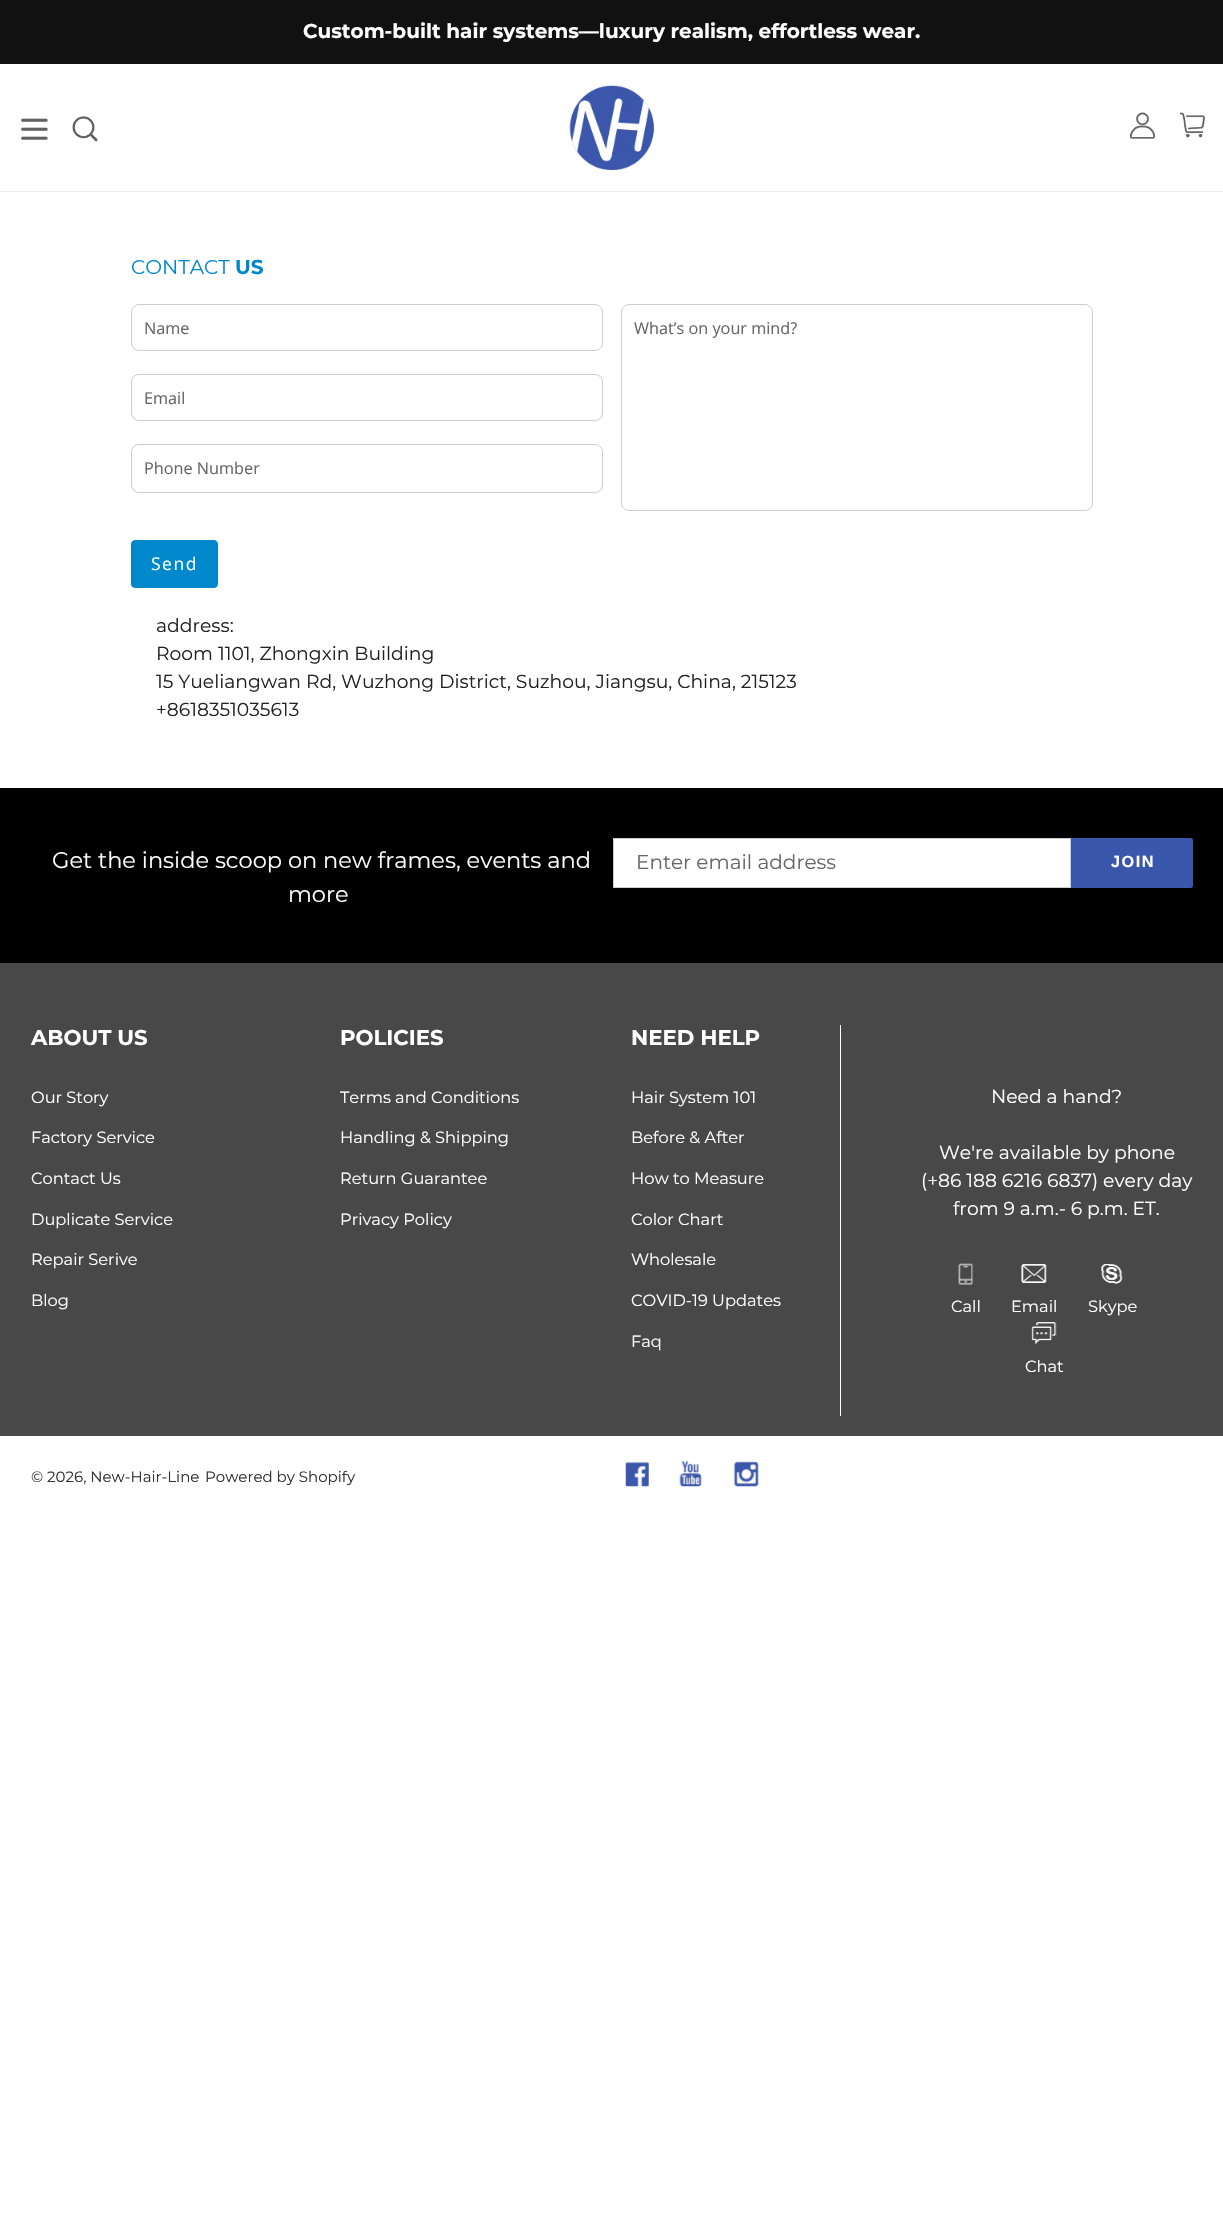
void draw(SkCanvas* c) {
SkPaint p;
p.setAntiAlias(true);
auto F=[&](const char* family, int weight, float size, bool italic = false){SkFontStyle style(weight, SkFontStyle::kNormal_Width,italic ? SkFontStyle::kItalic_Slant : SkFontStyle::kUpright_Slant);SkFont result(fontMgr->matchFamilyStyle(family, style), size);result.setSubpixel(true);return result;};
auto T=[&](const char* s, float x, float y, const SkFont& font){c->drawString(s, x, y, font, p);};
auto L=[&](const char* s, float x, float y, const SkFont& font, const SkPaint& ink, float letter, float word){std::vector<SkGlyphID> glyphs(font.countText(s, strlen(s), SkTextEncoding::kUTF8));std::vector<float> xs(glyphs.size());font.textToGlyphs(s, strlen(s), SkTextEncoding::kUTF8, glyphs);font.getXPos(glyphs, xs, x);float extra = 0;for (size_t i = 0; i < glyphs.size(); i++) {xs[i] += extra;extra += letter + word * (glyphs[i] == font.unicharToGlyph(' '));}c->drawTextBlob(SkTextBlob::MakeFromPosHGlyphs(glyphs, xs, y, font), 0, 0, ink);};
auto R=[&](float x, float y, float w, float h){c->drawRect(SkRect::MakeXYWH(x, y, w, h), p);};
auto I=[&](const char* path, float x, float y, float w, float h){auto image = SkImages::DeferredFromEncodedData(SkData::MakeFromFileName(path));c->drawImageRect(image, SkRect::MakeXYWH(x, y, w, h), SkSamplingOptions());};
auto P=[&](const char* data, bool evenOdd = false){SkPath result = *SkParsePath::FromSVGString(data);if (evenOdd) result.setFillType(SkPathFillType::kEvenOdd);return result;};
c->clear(0xffffffff);
p.setColor(0xff111111);
R(0,0,1223,64);
auto f1 = F("Montserrat",700,20);
p.setColor(0xffffffff);
T("Custom-built hair systems—luxury realism, effortless wear.",303,38,f1);
p.setColor(0xffebebeb);
R(0,191,1223,1);
I("1.png",21,118,27,22);
I("2.png",72,116,26,26);
I("3.png",569,82,87,91);
I("4.png",1130,112,25,27);
I("5.png",1180,112,25,26);
auto f2 = F("Montserrat",400,20);
p.setColor(0xff0088cc);
T("CONTACT",131,274,f2);
T("US",235,274,f1);
p.setStroke(true);
p.setStrokeWidth(1);
p.setColor(0xffcccccc);
c->drawRoundRect(SkRect::MakeXYWH(131.5,304.5,471,46),7.5,7.5,p);
auto f3 = F("Open Sans",400,16.25);
p.setStroke(false);
p.setColor(0xff666666);
T("Name",144,334,f3);
p.setStroke(true);
p.setColor(0xffcccccc);
c->drawRoundRect(SkRect::MakeXYWH(131.5,374.5,471,46),7.5,7.5,p);
p.setStroke(false);
p.setColor(0xff666666);
T("Email",144,404,f3);
p.setStroke(true);
p.setColor(0xffcccccc);
c->drawRoundRect(SkRect::MakeXYWH(131.5,444.5,471,48),7.5,7.5,p);
p.setStroke(false);
p.setColor(0xff666666);
T("Phone Number",144,474,f3);
p.setStroke(true);
p.setColor(0xffcccccc);
c->drawRoundRect(SkRect::MakeXYWH(621.5,304.5,471,206),7.5,7.5,p);
p.setStroke(false);
p.setColor(0xff666666);
T("What’s on your mind?",634,334,f3);
p.setColor(0xff0088cc);
c->drawRoundRect(SkRect::MakeXYWH(131.5,540.5,86,47),3.5,3.5,p);
p.setStroke(true);
c->drawRoundRect(SkRect::MakeXYWH(131.5,540.5,86,47),3.5,3.5,p);
auto f4 = F("Open Sans",400,17.5);
p.setStroke(false);
p.setColor(0xffffffff);
L("Send",151,570,f4,p,1.5,0);
auto f5 = F("Montserrat",400,18.75);
p.setColor(0xff222222);
T("address:",156,632,f5);
T("Room 1101, Zhongxin Building",156,660,f5);
T("15 Yueliangwan Rd, Wuzhong District, Suzhou, Jiangsu, China, 215123",156,688,f5);
T("+8618351035613",156,716,f5);
p.setColor(0xff000000);
R(0,788,1223,175);
auto f6 = F("Montserrat",400,22.5);
p.setColor(0xffffffff);
T("Get the inside scoop on new frames, events and",52,868,f6);
T("more",288,902,f6);
c->drawRect(SkRect::MakeXYWH(613.5,838.5,457,49),p);
p.setStroke(true);
p.setColor(0xffcccccc);
c->drawRect(SkRect::MakeXYWH(613.5,838.5,457,49),p);
p.setStroke(false);
p.setColor(0xff666666);
T("Enter email address",636,869,f2);
p.setColor(0xff3b57ab);
c->drawPath(P("M1071 838h119.5c1.5 0 2.5 1 2.5 2.5v45c0 1.5-1 2.5-2.5 2.5h-119.5z"),p);
auto f7 = F("Liberation Sans",700,16.25);
p.setColor(0xffffffff);
L("JOIN",1111,867,f7,p,1.5,0);
p.setColor(0xff484848);
R(0,963,1223,473);
auto f8 = F("Montserrat",700,21.25);
p.setColor(0xffffffff);
T("ABOUT US",31,1045,f8);
auto f9 = F("Montserrat",400,16.25);
T("Our Story",31,1103,f9);
T("Factory Service",31,1143,f9);
T("Contact Us",31,1184,f9);
T("Duplicate Service",31,1225,f9);
T("Repair Serive",31,1265,f9);
T("Blog",31,1306,f9);
T("POLICIES",340,1045,f8);
T("Terms and Conditions",340,1103,f9);
T("Handling & Shipping",340,1143,f9);
T("Return Guarantee",340,1184,f9);
T("Privacy Policy",340,1225,f9);
T("NEED HELP",631,1045,f8);
T("Hair System 101",631,1103,f9);
T("Before & After",631,1143,f9);
T("How to Measure",631,1184,f9);
T("Color Chart",631,1225,f9);
T("Wholesale",631,1265,f9);
T("COVID-19 Updates",631,1306,f9);
T("Faq",631,1347,f9);
R(840,1025,1,391);
T("Need a hand?",991,1103,f5);
T("We're available by phone",939,1159,f5);
T("(+86 188 6216 6837) every day",921,1187,f5);
T("from 9 a.m.- 6 p.m. ET.",953,1215,f5);
I("6.png",958,1263,16,22);
T("Call",951,1312,f9);
I("7.png",1021,1264,26,19);
T("Email",1011,1312,f9);
I("8.png",1101,1264,22,20);
T("Skype",1088,1312,f9);
I("9.png",1031,1322,26,22);
T("Chat",1025,1372,f9);
auto f10 = F("Montserrat",400,15);
p.setColor(0xff333232);
T("© 2026, New-Hair-Line",31,1482,f10);
T("Powered by Shopify",205,1482,f10);
I("10.png",625,1461,25,26);
I("11.png",679,1461,23,26);
I("12.png",733,1461,26,26);
}
